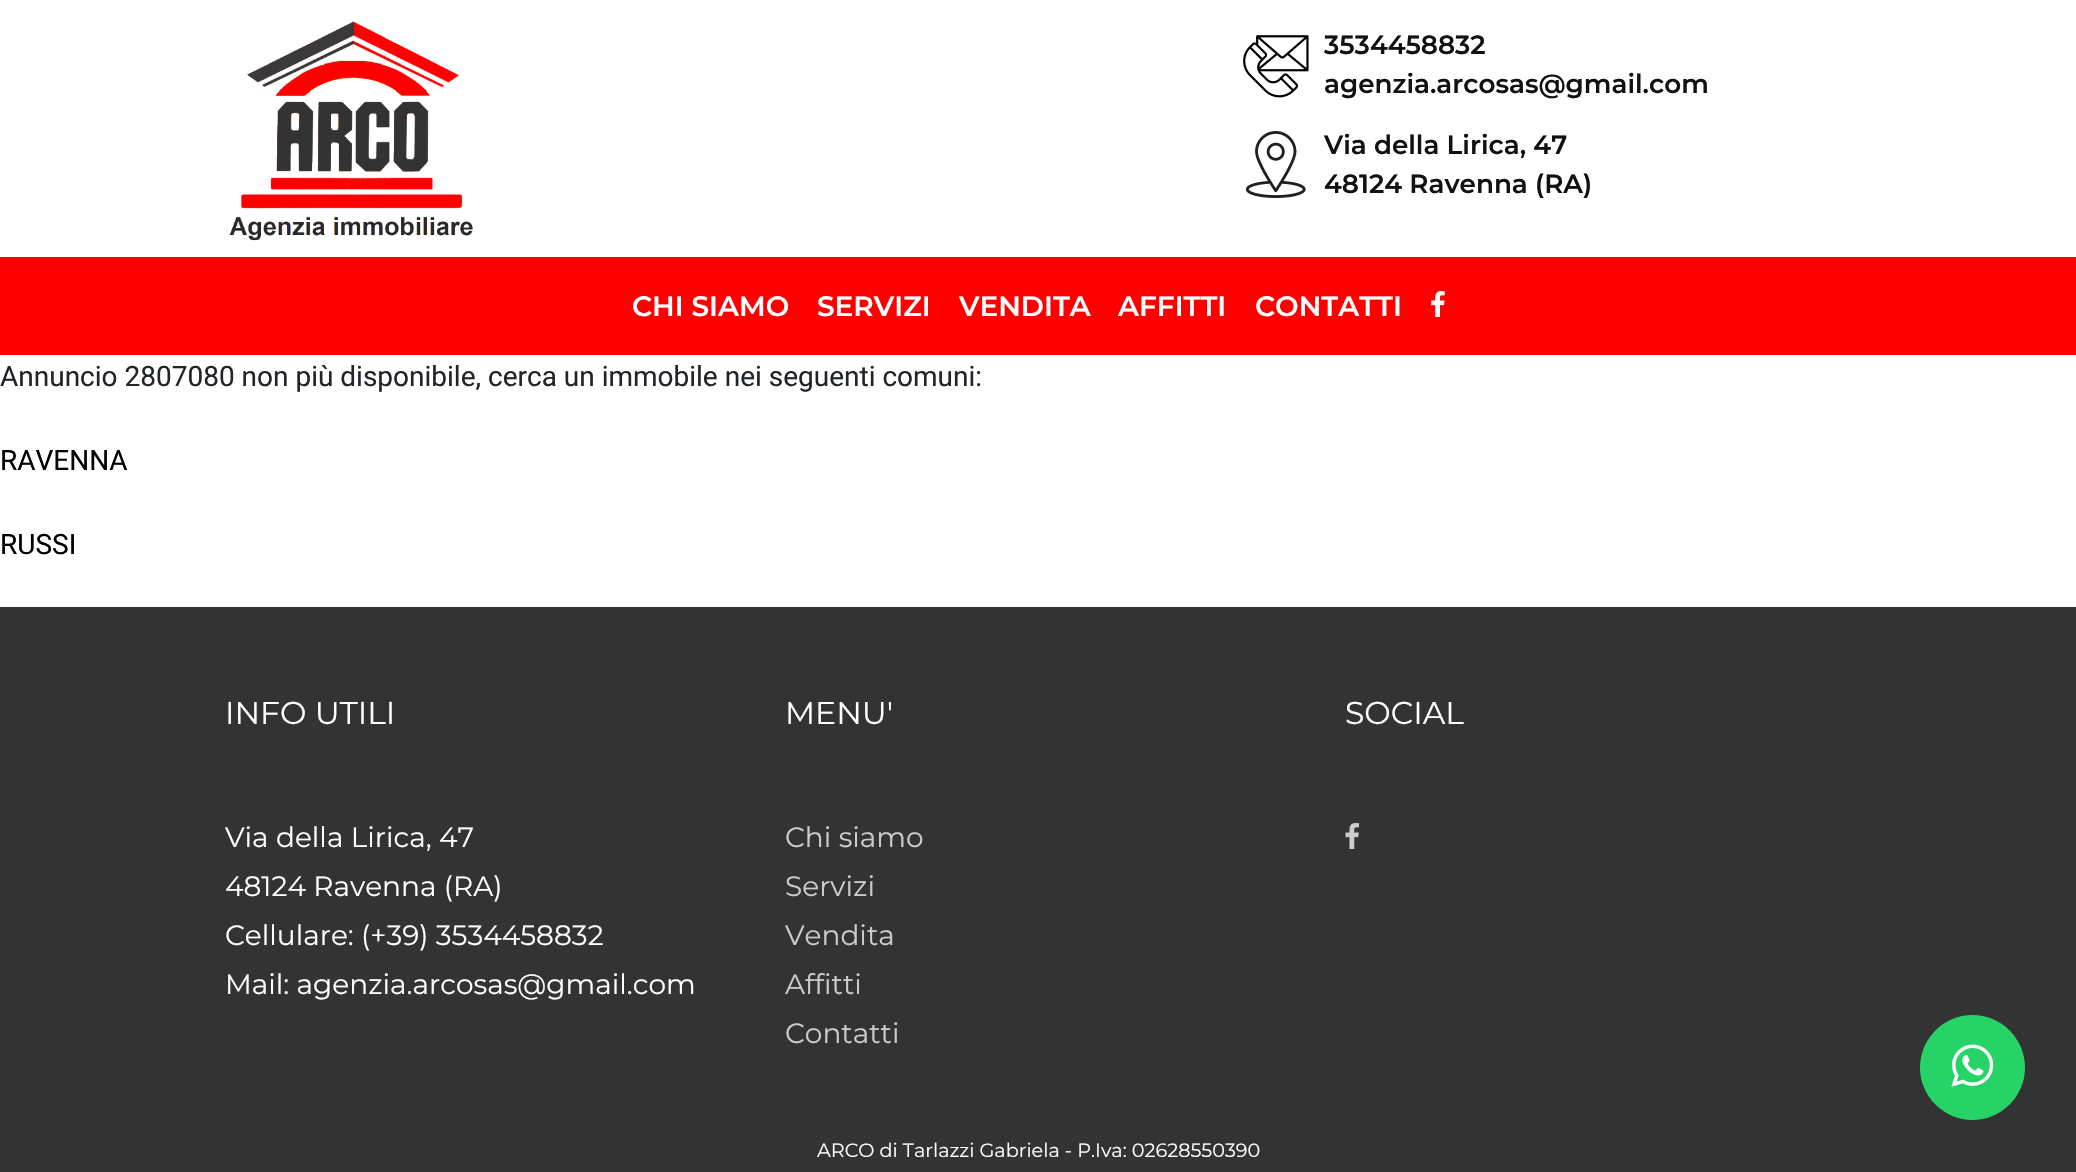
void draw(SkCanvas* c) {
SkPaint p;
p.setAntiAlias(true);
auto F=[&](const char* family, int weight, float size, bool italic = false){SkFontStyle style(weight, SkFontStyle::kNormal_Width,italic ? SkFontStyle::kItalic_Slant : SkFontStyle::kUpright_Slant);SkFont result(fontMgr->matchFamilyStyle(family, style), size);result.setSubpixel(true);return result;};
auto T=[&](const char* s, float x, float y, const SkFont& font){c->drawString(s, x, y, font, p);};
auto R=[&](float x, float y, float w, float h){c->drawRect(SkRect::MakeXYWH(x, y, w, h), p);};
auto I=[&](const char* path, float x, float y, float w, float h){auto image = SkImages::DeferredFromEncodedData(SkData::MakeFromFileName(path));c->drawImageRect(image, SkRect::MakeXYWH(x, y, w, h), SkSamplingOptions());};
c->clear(0xffffffff);
I("1.png",229,21,244,220);
I("2.png",1243,35,66,63);
auto f1 = F("Montserrat",600,26.25);
p.setColor(0xff111111);
T("3534458832",1324,54,f1);
T("agenzia.arcosas@gmail.com",1324,93,f1);
I("3.png",1245,131,61,67);
T("Via della Lirica, 47",1324,154,f1);
T("48124 Ravenna (RA)",1324,193,f1);
p.setColor(0xffff0000);
R(0,257,2076,98);
auto f2 = F("Montserrat",600,28);
p.setColor(0xffffffff);
T("CHI SIAMO",632,316,f2);
T("SERVIZI",817,316,f2);
T("VENDITA",959,316,f2);
T("AFFITTI",1118,316,f2);
T("CONTATTI",1255,316,f2);
I("4.png",1431,291,14,26);
auto f3 = F("Roboto",400,28);
p.setColor(0xff212529);
T("Annuncio 2807080 non più disponibile, cerca un immobile nei seguenti comuni:",0,386,f3);
p.setColor(0xff000000);
T("RAVENNA",0,470,f3);
T("RUSSI",0,554,f3);
p.setColor(0xff333333);
R(0,607,2076,565);
auto f4 = F("Montserrat",400,31.5);
p.setColor(0xffffffff);
T("INFO UTILI",225,724,f4);
auto f5 = F("Montserrat",400,28);
T("Via della Lirica, 47",225,847,f5);
T("48124 Ravenna (RA)",225,896,f5);
T("Cellulare: (+39) 3534458832",225,945,f5);
T("Mail: agenzia.arcosas@gmail.com",225,994,f5);
T("MENU'",785,724,f4);
p.setColor(0xffcccccc);
T("Chi siamo",785,847,f5);
T("Servizi",785,896,f5);
T("Vendita",785,945,f5);
T("Affitti",785,994,f5);
T("Contatti",785,1043,f5);
p.setColor(0xffffffff);
T("SOCIAL",1345,724,f4);
I("5.png",1345,823,14,26);
auto f6 = F("Montserrat",400,19.25);
T("ARCO di Tarlazzi Gabriela - P.Iva: 02628550390",817,1157,f6);
p.setColor(0xff25d366);
c->drawCircle(1972.5,1067.5,52.5,p);
I("6.png",1951,1044,43,43);
}
